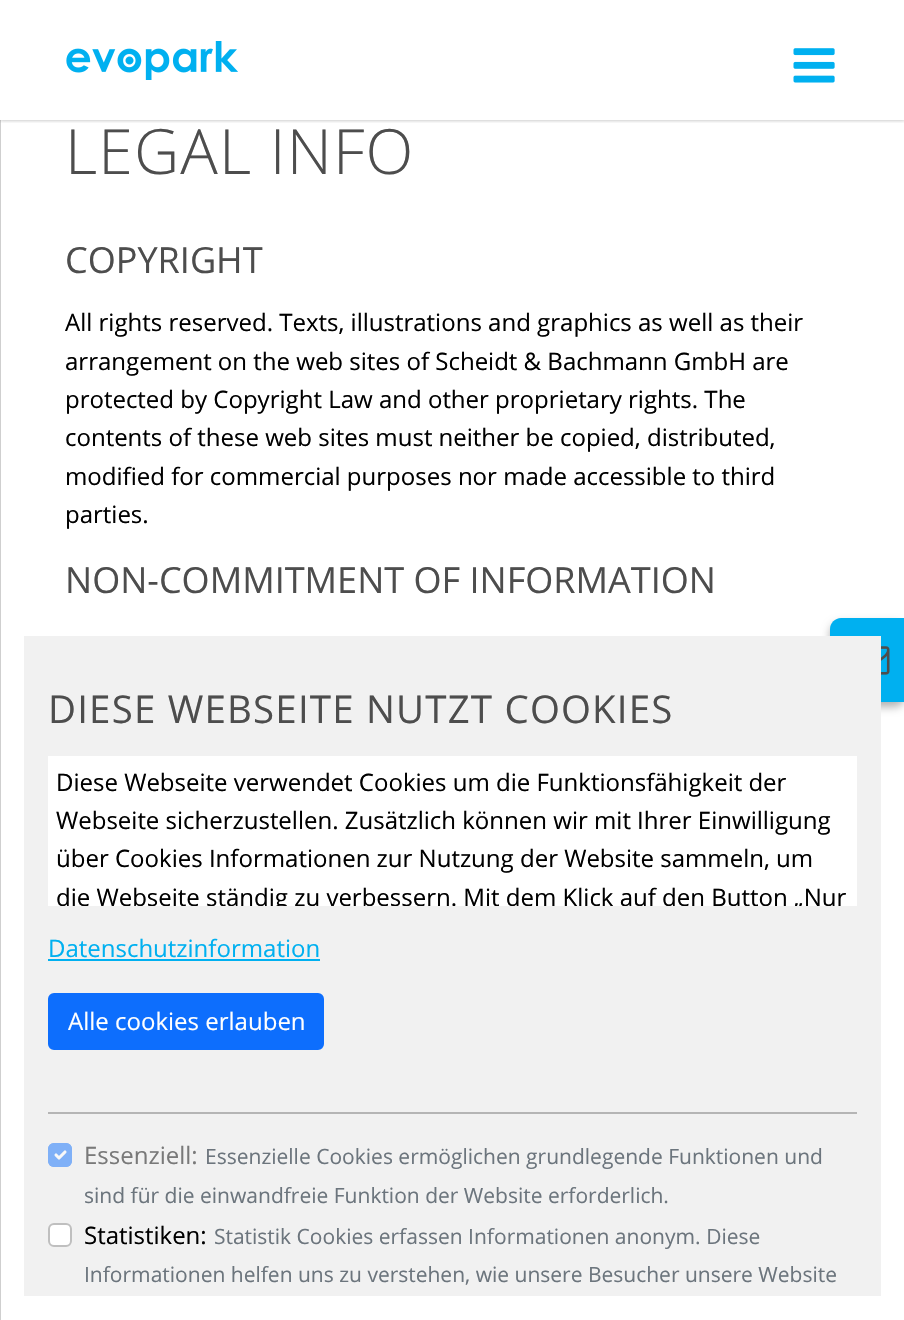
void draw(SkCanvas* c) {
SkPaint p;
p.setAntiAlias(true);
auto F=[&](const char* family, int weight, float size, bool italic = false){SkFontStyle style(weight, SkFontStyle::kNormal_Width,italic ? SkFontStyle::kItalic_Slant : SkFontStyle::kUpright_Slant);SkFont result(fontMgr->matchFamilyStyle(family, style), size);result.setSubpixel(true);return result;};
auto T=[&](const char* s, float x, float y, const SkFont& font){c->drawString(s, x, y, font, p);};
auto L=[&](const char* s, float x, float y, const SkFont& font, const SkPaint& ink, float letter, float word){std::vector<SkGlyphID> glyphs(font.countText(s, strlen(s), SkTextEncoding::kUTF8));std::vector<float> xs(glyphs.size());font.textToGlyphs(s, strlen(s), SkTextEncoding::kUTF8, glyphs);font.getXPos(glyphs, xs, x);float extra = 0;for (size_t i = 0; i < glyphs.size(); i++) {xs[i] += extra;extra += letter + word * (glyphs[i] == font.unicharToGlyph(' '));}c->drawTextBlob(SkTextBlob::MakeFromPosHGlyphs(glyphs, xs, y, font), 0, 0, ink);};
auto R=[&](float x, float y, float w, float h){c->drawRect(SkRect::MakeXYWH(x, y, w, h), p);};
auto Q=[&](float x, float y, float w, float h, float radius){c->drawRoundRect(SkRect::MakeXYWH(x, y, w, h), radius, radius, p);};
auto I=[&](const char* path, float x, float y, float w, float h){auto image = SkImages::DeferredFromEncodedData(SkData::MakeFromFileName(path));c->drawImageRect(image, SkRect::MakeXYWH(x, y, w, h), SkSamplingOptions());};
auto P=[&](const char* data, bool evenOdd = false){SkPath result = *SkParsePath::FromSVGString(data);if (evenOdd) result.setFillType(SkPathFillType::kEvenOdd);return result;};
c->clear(0xffffffff);
p.setColor(0xffcfcfcf);
R(0,120,1,1200);
c->save();
c->clipRect(SkRect::MakeXYWH(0,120,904,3));
p.setColor(0x4d000000);
p.setMaskFilter(SkMaskFilter::MakeBlur(kNormal_SkBlurStyle, 2));
c->drawRect(SkRect::MakeXYWH(0,0,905,120),p);
p.setMaskFilter(nullptr);
c->restore();
I("1.png",66,41,172,39);
I("2.png",793,48,42,35);
auto f1 = F("Open Sans",300,62.5);
p.setColor(0xff4d4d4d);
L("LEGAL INFO",65,174,f1,p,1.2,0);
auto f2 = F("Open Sans",400,36);
T("COPYRIGHT",65,273,f2);
auto f3 = F("Open Sans",400,24);
p.setColor(0xff000000);
T("All rights reserved. Texts, illustrations and graphics as well as their",65,331,f3);
T("arrangement on the web sites of Scheidt & Bachmann GmbH are",65,370,f3);
T("protected by Copyright Law and other proprietary rights. The",65,408,f3);
T("contents of these web sites must neither be copied, distributed,",65,446,f3);
T("modified for commercial purposes nor made accessible to third",65,485,f3);
T("parties.",65,523,f3);
p.setColor(0xff4d4d4d);
T("NON-COMMITMENT OF INFORMATION",65,593,f2);
p.setColor(0x4d000000);
p.setMaskFilter(SkMaskFilter::MakeBlur(kNormal_SkBlurStyle, 4));
c->drawRoundRect(SkRect::MakeXYWH(830,623,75,84),11,11,p);
p.setMaskFilter(nullptr);
p.setColor(0xff00b0f0);
c->drawPath(P("M841 618h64v84h-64c-6 0-11-5-11-11v-62c0-6 5-11 11-11z"),p);
I("3.png",881,646,9,29);
p.setColor(0xfff1f1f1);
R(24,636,857,660);
auto f4 = F("Open Sans",400,38.4);
p.setColor(0xff4d4d4d);
L("DIESE WEBSEITE NUTZT COOKIES",48,723,f4,p,1.2,0);
p.setColor(0xffffffff);
R(48,756,809,150);
p.setColor(0xff000000);
T("Diese Webseite verwendet Cookies um die Funktionsfähigkeit der",56,791,f3);
T("Webseite sicherzustellen. Zusätzlich können wir mit Ihrer Einwilligung",56,829,f3);
T("über Cookies Informationen zur Nutzung der Website sammeln, um",56,867,f3);
c->save();
c->clipRect(SkRect::MakeXYWH(48,756,809,150));
T("die Webseite ständig zu verbessern. Mit dem Klick auf den Button „Nur",56,906,f3);
c->restore();
p.setColor(0xff00b0f0);
T("Datenschutzinformation",48,957,f3);
R(48,959,272,2);
p.setColor(0xff0d6efd);
c->drawRoundRect(SkRect::MakeXYWH(49,994,274,55),5,5,p);
p.setStroke(true);
p.setStrokeWidth(2);
c->drawRoundRect(SkRect::MakeXYWH(49,994,274,55),5,5,p);
p.setStroke(false);
p.setColor(0xffffffff);
T("Alle cookies erlauben",68,1030,f3);
p.setColor(0xffb5b5b5);
R(48,1112,809,2);
p.setColor(0xff7fb0f7);
Q(48,1143,24,24,6);
p.setStroke(true);
p.setStrokeWidth(3.1);
p.setStrokeCap(SkPaint::kRound_Cap);
p.setStrokeJoin(SkPaint::kRound_Join);
p.setColor(0xfff8f8f8);
c->drawPath(P("M56 1155l3 3l6-6"),p);
p.setStrokeWidth(2);
p.setStrokeCap(SkPaint::kButt_Cap);
p.setStrokeJoin(SkPaint::kMiter_Join);
p.setColor(0xff7fb0f7);
c->drawRoundRect(SkRect::MakeXYWH(49,1144,22,22),5,5,p);
p.setStroke(false);
p.setColor(0xff797979);
T("Essenziell:",84,1164,f3);
auto f5 = F("Open Sans",400,21);
p.setColor(0xff6c757d);
T("Essenzielle Cookies ermöglichen grundlegende Funktionen und",205,1164,f5);
T("sind für die einwandfreie Funktion der Website erforderlich.",84,1203,f5);
p.setColor(0xffffffff);
Q(48,1223,24,24,6);
p.setStroke(true);
p.setColor(0x40000000);
c->drawRoundRect(SkRect::MakeXYWH(49,1224,22,22),5,5,p);
p.setStroke(false);
p.setColor(0xff000000);
T("Statistiken:",84,1244,f3);
p.setColor(0xff6c757d);
T("Statistik Cookies erfassen Informationen anonym. Diese",214,1244,f5);
T("Informationen helfen uns zu verstehen, wie unsere Besucher unsere Website",84,1282,f5);
}
